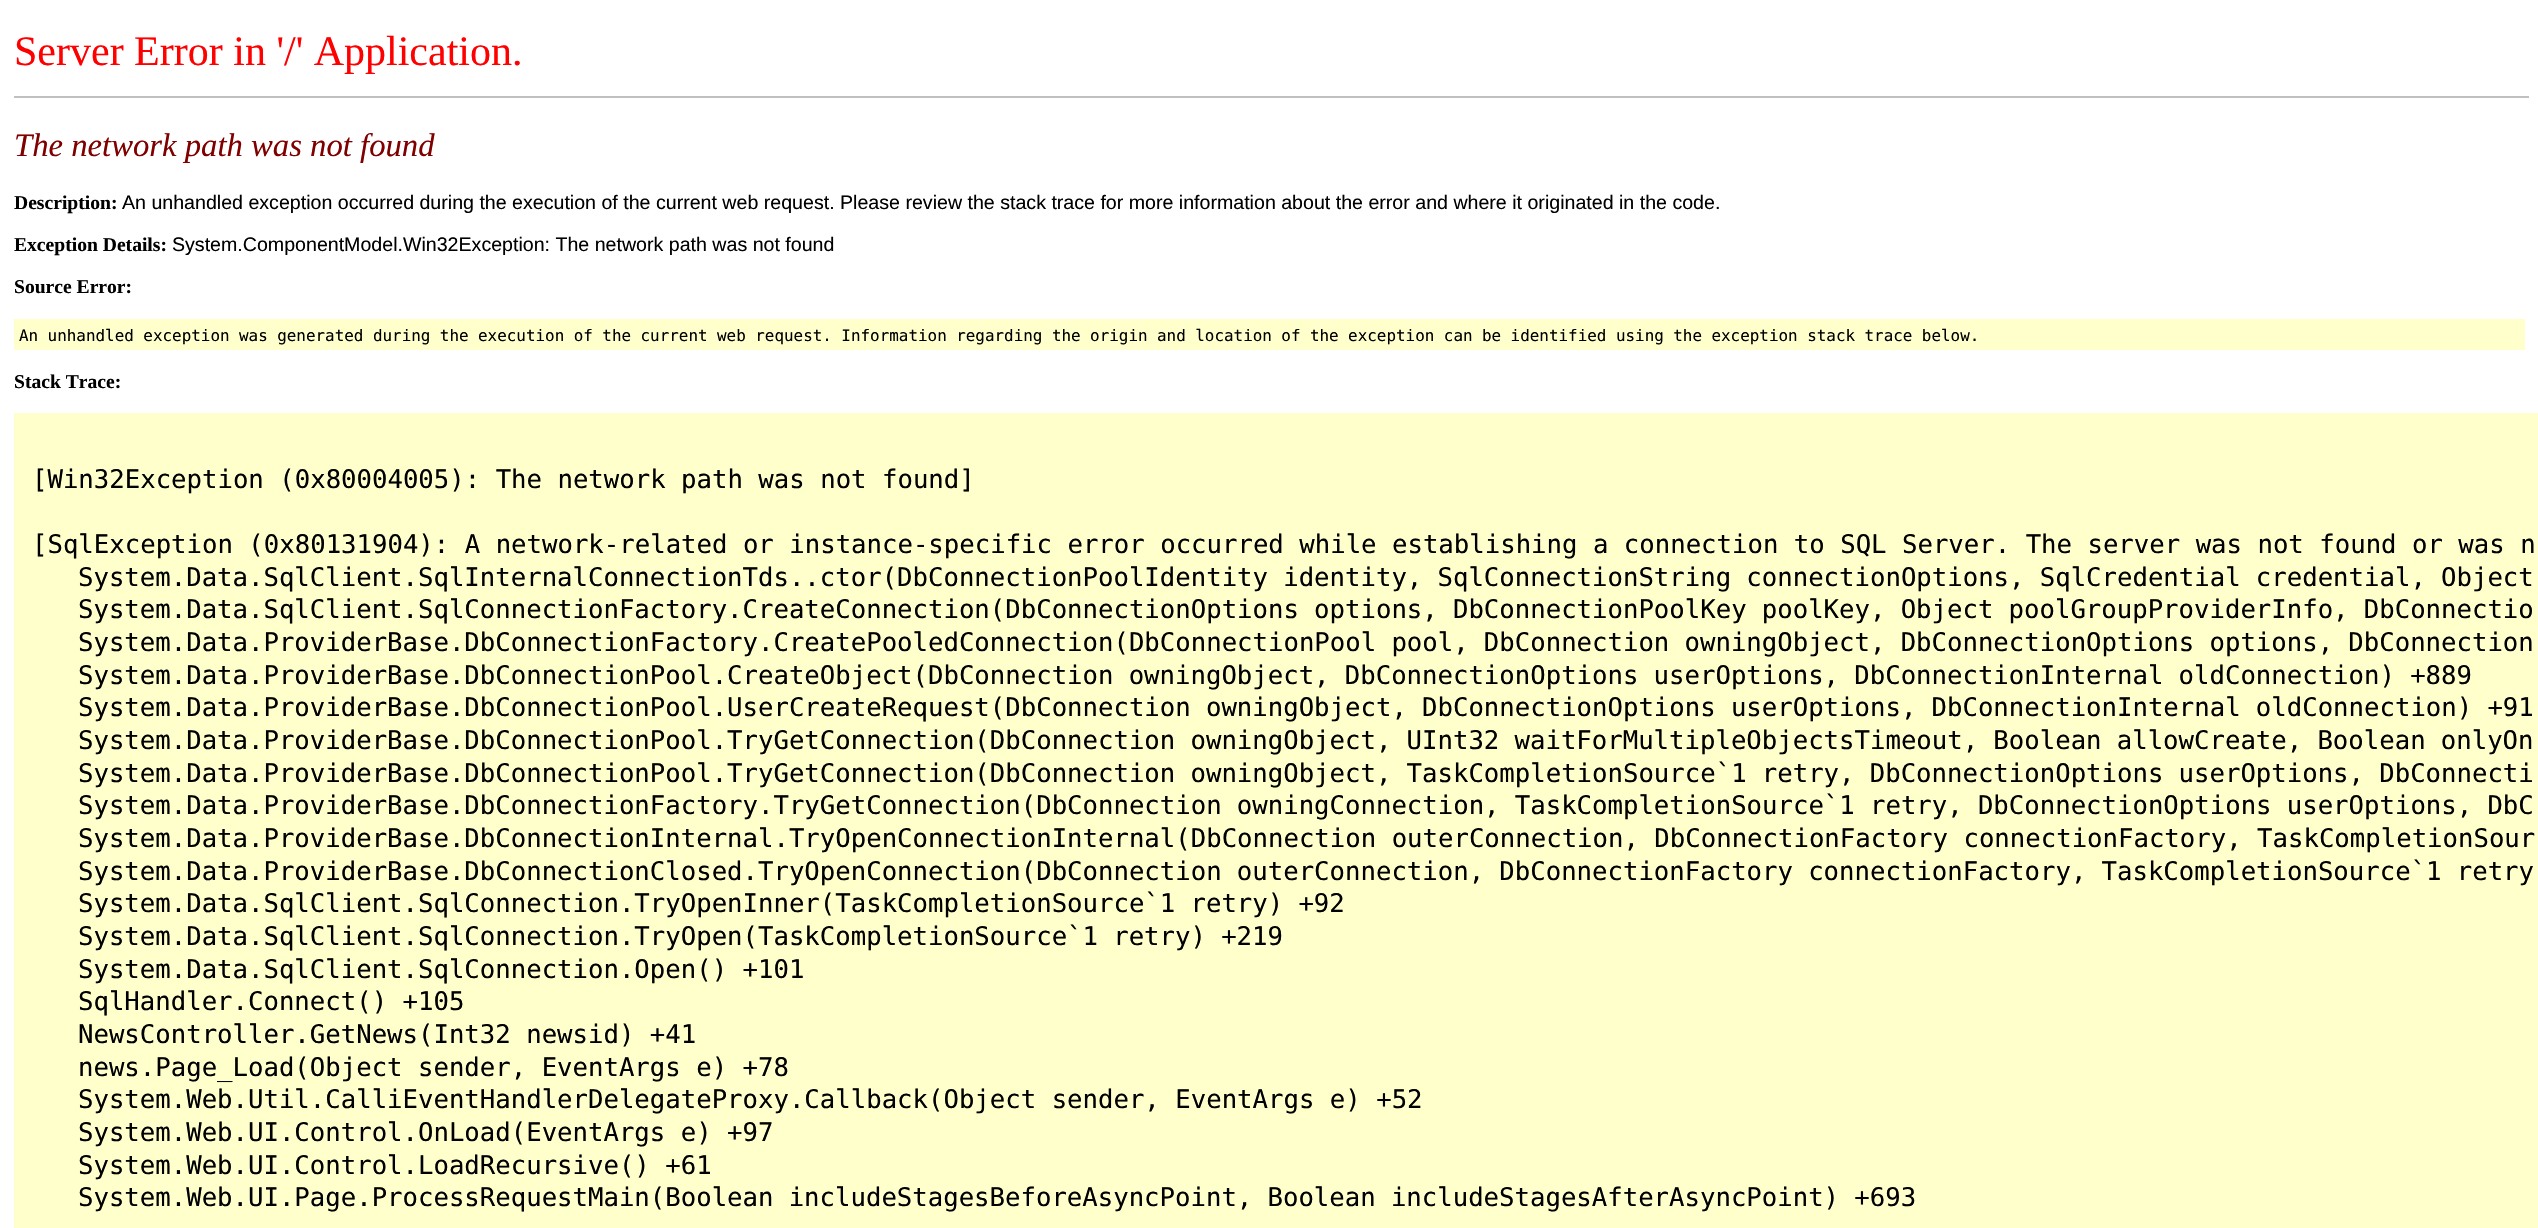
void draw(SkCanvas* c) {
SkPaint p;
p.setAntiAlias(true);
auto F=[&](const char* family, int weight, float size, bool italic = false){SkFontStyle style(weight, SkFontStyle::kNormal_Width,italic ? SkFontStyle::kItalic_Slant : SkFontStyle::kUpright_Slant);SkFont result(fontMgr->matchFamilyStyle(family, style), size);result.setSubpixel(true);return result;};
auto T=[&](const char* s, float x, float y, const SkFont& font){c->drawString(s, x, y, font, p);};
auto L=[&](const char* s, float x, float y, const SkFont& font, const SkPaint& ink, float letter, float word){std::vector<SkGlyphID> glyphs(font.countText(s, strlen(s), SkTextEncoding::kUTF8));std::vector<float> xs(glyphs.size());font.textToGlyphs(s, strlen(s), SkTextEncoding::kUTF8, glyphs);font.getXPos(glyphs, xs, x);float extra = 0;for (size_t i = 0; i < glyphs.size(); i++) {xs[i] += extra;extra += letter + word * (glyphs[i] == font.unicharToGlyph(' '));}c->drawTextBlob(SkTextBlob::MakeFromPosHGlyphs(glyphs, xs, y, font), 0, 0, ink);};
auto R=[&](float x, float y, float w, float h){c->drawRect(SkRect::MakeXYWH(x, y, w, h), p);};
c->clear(0xffffffff);
auto f1 = F("Liberation Serif",400,42);
p.setColor(0xffff0000);
T("Server Error in '/' Application.",14,65,f1);
p.setColor(0xffc0c0c0);
R(14,96,2515,2);
auto f2 = F("Liberation Serif",400,32.7,true);
p.setColor(0xff800000);
T("The network path was not found",14,156,f2);
auto f3 = F("Liberation Serif",700,19.6);
p.setColor(0xff000000);
T("Description:",14,209,f3);
auto f4 = F("Liberation Sans",400,19.6);
T("An unhandled exception occurred during the execution of the current web request. Please review the stack trace for more information about the error and where it originated in the code.",122,209,f4);
T("Exception Details:",14,251,f3);
T("System.ComponentModel.Win32Exception: The network path was not found",172,251,f4);
T("Source Error:",14,293,f3);
p.setColor(0xffffffcc);
R(14,319,2511,31);
auto f5 = F("DejaVu Sans Mono",400,15.92);
p.setColor(0xff000000);
L("An unhandled exception was generated during the execution of the current web request. Information regarding the origin and location of the exception can be identified using the exception stack trace below.",19,341,f5,p,0,-.15);
T("Stack Trace:",14,388,f3);
p.setColor(0xffffffcc);
R(14,413,2524,815);
auto f6 = F("DejaVu Sans Mono",400,25.67);
p.setColor(0xff000000);
T("[Win32Exception (0x80004005): The network path was not found]",32,488,f6);
T("[SqlException (0x80131904): A network-related or instance-specific error occurred while establishing a connection to SQL Server. The server was not found or was n",32,553,f6);
L("System.Data.SqlClient.SqlInternalConnectionTds..ctor(DbConnectionPoolIdentity identity, SqlConnectionString connectionOptions, SqlCredential credential, Object",78,586,f6,p,0,-.25);
L("System.Data.SqlClient.SqlConnectionFactory.CreateConnection(DbConnectionOptions options, DbConnectionPoolKey poolKey, Object poolGroupProviderInfo, DbConnectio",78,618,f6,p,0,-.25);
L("System.Data.ProviderBase.DbConnectionFactory.CreatePooledConnection(DbConnectionPool pool, DbConnection owningObject, DbConnectionOptions options, DbConnection",78,651,f6,p,0,-.25);
L("System.Data.ProviderBase.DbConnectionPool.CreateObject(DbConnection owningObject, DbConnectionOptions userOptions, DbConnectionInternal oldConnection) +889",78,684,f6,p,0,-.25);
L("System.Data.ProviderBase.DbConnectionPool.UserCreateRequest(DbConnection owningObject, DbConnectionOptions userOptions, DbConnectionInternal oldConnection) +91",78,716,f6,p,0,-.25);
L("System.Data.ProviderBase.DbConnectionPool.TryGetConnection(DbConnection owningObject, UInt32 waitForMultipleObjectsTimeout, Boolean allowCreate, Boolean onlyOn",78,749,f6,p,0,-.25);
L("System.Data.ProviderBase.DbConnectionPool.TryGetConnection(DbConnection owningObject, TaskCompletionSource`1 retry, DbConnectionOptions userOptions, DbConnecti",78,782,f6,p,0,-.25);
L("System.Data.ProviderBase.DbConnectionFactory.TryGetConnection(DbConnection owningConnection, TaskCompletionSource`1 retry, DbConnectionOptions userOptions, DbC",78,814,f6,p,0,-.25);
T("System.Data.ProviderBase.DbConnectionInternal.TryOpenConnectionInternal(DbConnection outerConnection, DbConnectionFactory connectionFactory, TaskCompletionSour",78,847,f6);
L("System.Data.ProviderBase.DbConnectionClosed.TryOpenConnection(DbConnection outerConnection, DbConnectionFactory connectionFactory, TaskCompletionSource`1 retry",78,880,f6,p,0,-.25);
L("System.Data.SqlClient.SqlConnection.TryOpenInner(TaskCompletionSource`1 retry) +92",78,912,f6,p,0,-.25);
L("System.Data.SqlClient.SqlConnection.TryOpen(TaskCompletionSource`1 retry) +219",78,945,f6,p,0,-.25);
T("System.Data.SqlClient.SqlConnection.Open() +101",78,978,f6);
T("SqlHandler.Connect() +105",78,1010,f6);
T("NewsController.GetNews(Int32 newsid) +41",78,1043,f6);
T("news.Page_Load(Object sender, EventArgs e) +78",78,1076,f6);
T("System.Web.Util.CalliEventHandlerDelegateProxy.Callback(Object sender, EventArgs e) +52",78,1108,f6);
T("System.Web.UI.Control.OnLoad(EventArgs e) +97",78,1141,f6);
T("System.Web.UI.Control.LoadRecursive() +61",78,1174,f6);
L("System.Web.UI.Page.ProcessRequestMain(Boolean includeStagesBeforeAsyncPoint, Boolean includeStagesAfterAsyncPoint) +693",78,1206,f6,p,0,-.25);
}
